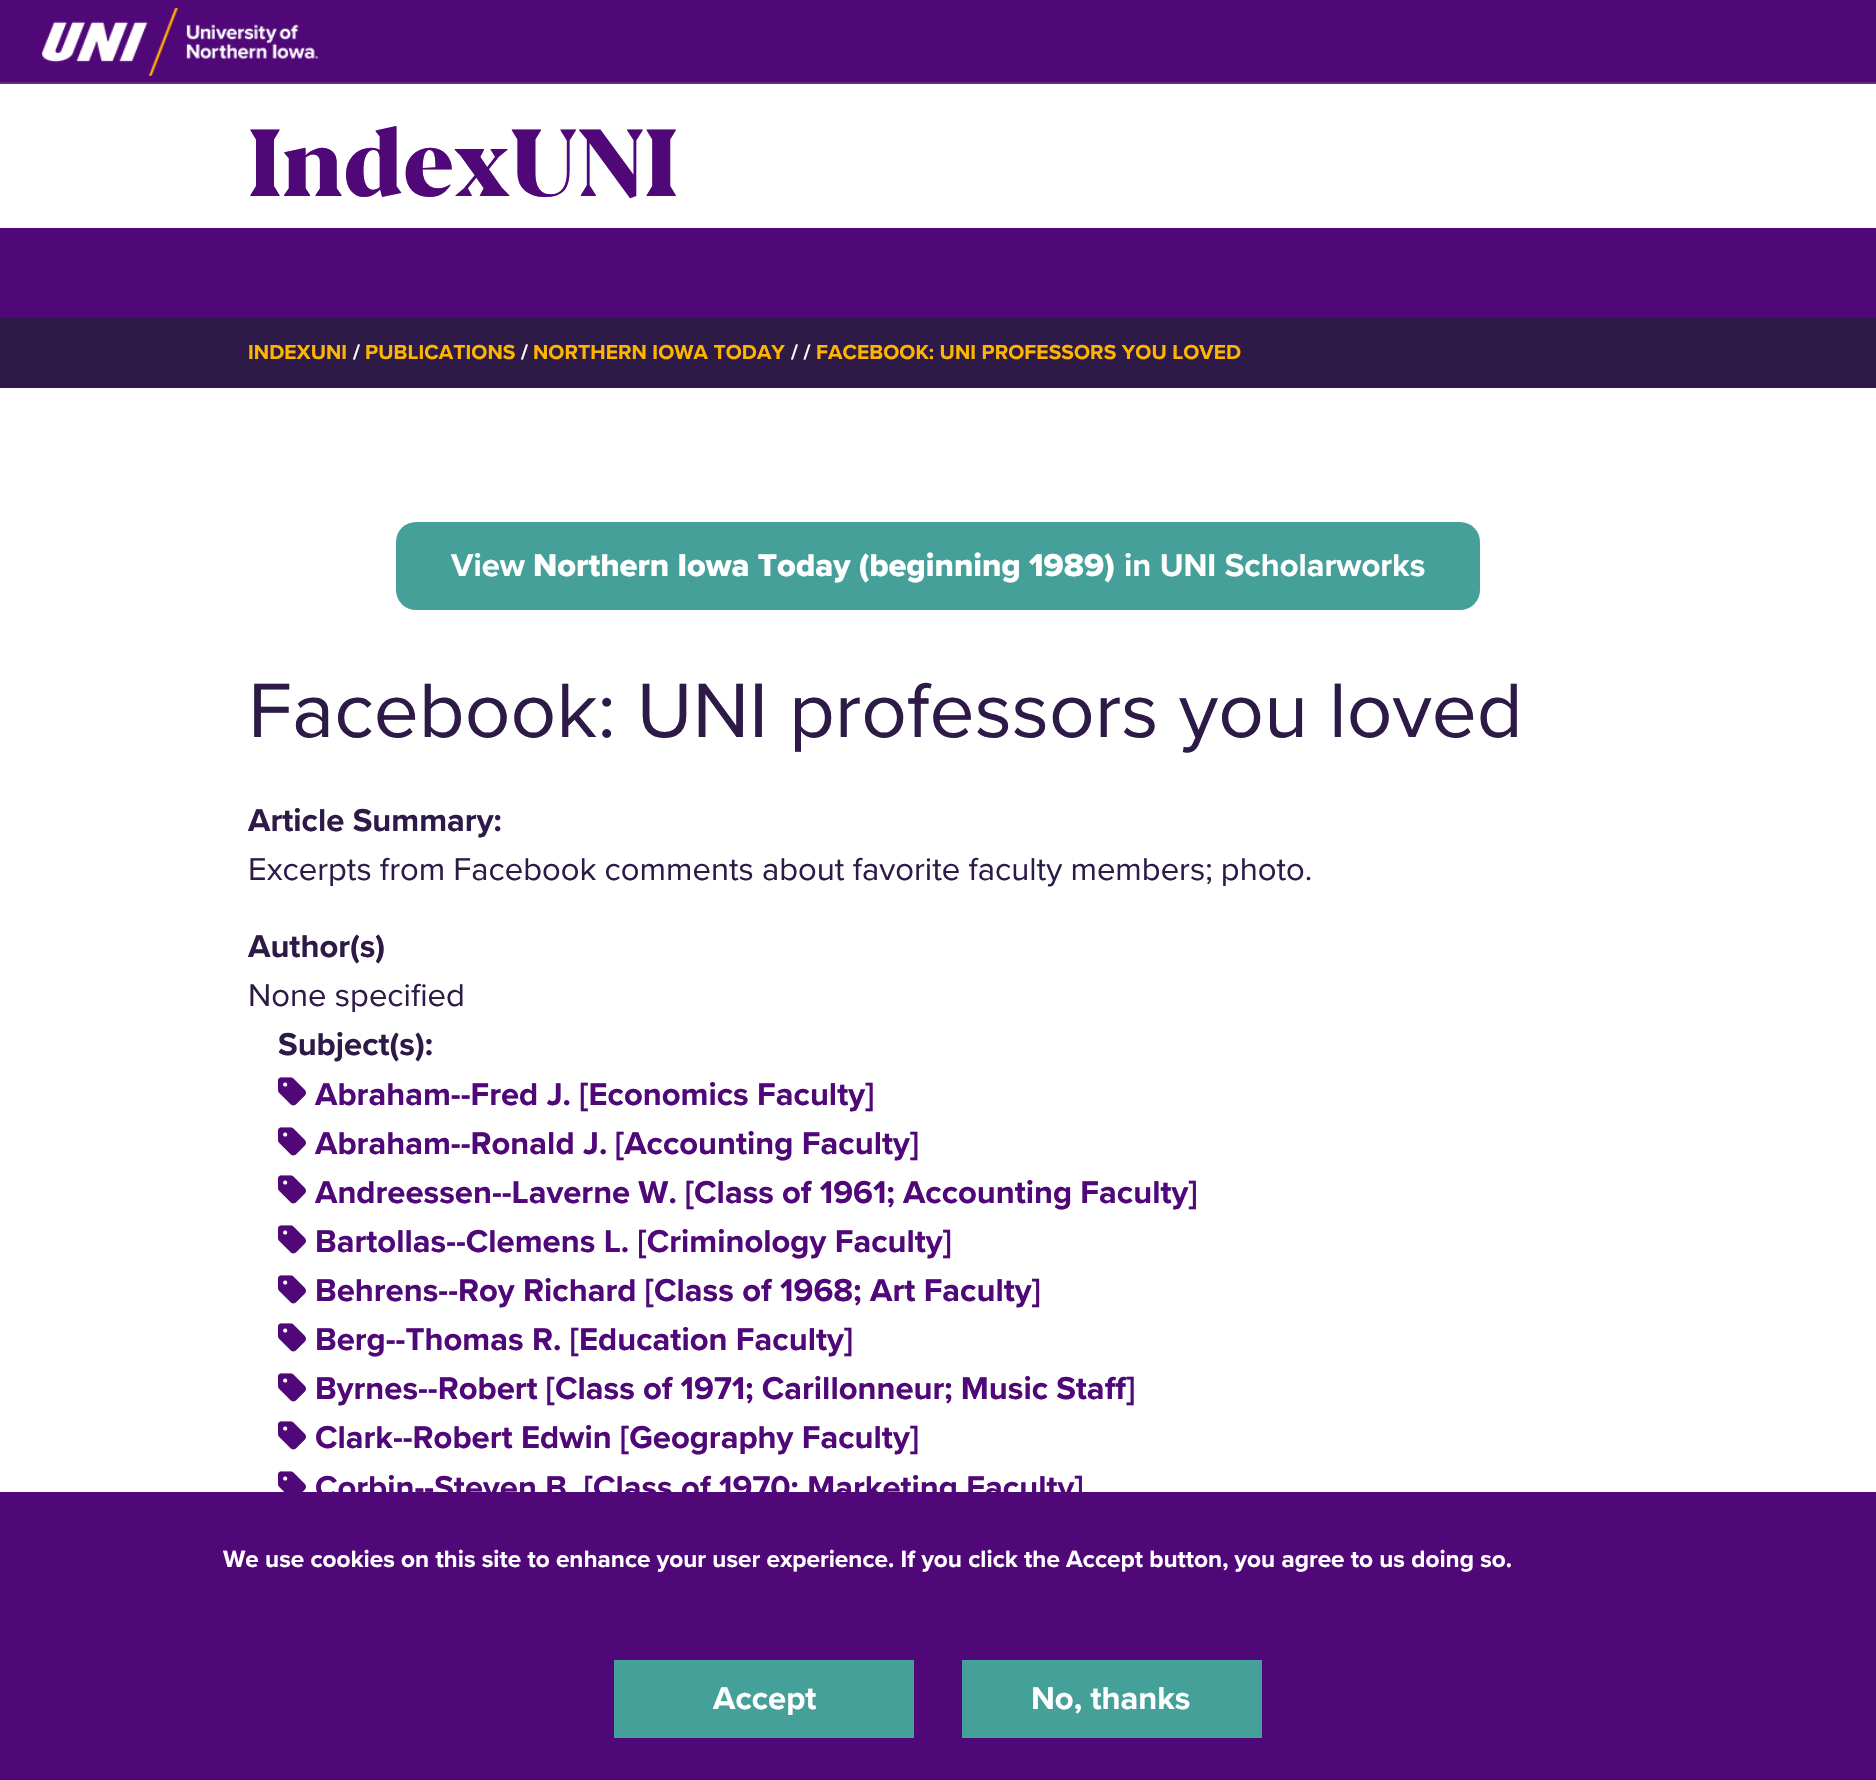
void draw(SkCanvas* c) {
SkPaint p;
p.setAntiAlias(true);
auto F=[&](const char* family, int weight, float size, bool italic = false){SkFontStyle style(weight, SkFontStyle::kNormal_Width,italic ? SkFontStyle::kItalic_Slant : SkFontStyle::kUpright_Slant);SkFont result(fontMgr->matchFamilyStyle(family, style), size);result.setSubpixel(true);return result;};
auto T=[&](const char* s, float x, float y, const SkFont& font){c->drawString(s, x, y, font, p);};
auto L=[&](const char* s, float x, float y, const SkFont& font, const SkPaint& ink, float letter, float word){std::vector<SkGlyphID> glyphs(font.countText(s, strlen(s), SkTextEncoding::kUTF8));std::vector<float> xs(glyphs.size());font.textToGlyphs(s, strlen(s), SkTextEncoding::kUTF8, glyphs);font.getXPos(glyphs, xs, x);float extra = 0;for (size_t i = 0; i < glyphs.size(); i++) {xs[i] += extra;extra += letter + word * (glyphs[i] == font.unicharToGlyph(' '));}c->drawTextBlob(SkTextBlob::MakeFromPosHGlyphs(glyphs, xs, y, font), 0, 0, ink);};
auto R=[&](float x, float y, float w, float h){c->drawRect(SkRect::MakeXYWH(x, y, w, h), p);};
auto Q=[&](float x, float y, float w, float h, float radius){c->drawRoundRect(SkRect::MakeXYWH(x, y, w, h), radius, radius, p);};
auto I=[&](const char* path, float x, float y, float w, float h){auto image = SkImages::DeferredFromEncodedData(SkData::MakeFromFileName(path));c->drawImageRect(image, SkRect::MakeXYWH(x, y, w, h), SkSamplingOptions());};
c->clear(0xffffffff);
p.setColor(0xff500778);
R(0,0,1876,82);
p.setColor(0xff602c7e);
R(0,82,1876,2);
I("1.png",42,8,276,68);
auto f1 = F("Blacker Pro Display",900,94.5);
p.setColor(0xff500778);
T("IndexUNI",248,196,f1);
R(0,228,1876,90);
p.setColor(0xff2e1a47);
R(0,318,1876,70);
auto f2 = F("Proxima Nova",700,21);
p.setColor(0xffffb500);
L("INDEXUNI",248,359,f2,p,.05,0);
p.setColor(0xffffffff);
L("/",353,359,f2,p,.05,0);
p.setColor(0xffffb500);
L("PUBLICATIONS",365,359,f2,p,.05,0);
p.setColor(0xffffffff);
L("/",521,359,f2,p,.05,0);
p.setColor(0xffffb500);
L("NORTHERN IOWA TODAY",533,359,f2,p,.05,0);
p.setColor(0xffffffff);
L("/ /",791,359,f2,p,.05,0);
p.setColor(0xffffb500);
L("FACEBOOK: UNI PROFESSORS YOU LOVED",816,359,f2,p,.05,0);
p.setColor(0xff46a09a);
Q(396,522,1084,88,20);
auto f3 = F("Proxima Nova",700,32.75);
p.setColor(0xffffffff);
T("View",451,576,f3);
auto f4 = F("Proxima Nova",800,32.75);
L("Northern Iowa Today (beginning 1989)",533,576,f4,p,0,-.25);
T("in UNI Scholarworks",1124,576,f3);
auto f5 = F("Proxima Nova",400,80);
p.setColor(0xff2e1a47);
T("Facebook: UNI professors you loved",248,737,f5);
T("Article Summary:",248,831,f3);
auto f6 = F("Proxima Nova",400,32.75);
L("Excerpts from Facebook comments about favorite faculty members; photo.",248,880,f6,p,0,-.25);
T("Author(s)",248,957,f3);
T("None specified",248,1006,f6);
T("Subject(s):",278,1055,f3);
I("2.png",278,1077,28,29);
p.setColor(0xff500778);
T("Abraham--Fred J. [Economics Faculty]",315,1105,f3);
I("2.png",278,1127,28,29);
T("Abraham--Ronald J.",315,1154,f3);
T("[Accounting Faculty]",615,1154,f3);
I("2.png",278,1175,28,29);
L("Andreessen--Laverne W. [Class of 1961; Accounting Faculty]",315,1203,f3,p,0,-.25);
I("2.png",278,1225,28,29);
T("Bartollas--Clemens L. [Criminology Faculty]",315,1252,f3);
I("2.png",278,1275,28,29);
T("Behrens--Roy Richard [Class of 1968; Art Faculty]",315,1301,f3);
I("2.png",278,1323,28,29);
T("Berg--Thomas R. [Education Faculty]",315,1350,f3);
I("2.png",278,1373,28,29);
L("Byrnes--Robert [Class of 1971; Carillonneur; Music Staff]",315,1399,f3,p,0,-.25);
I("2.png",278,1421,28,29);
T("Clark--Robert Edwin [Geography Faculty]",315,1448,f3);
I("3.png",278,1471,28,21);
T("Corbin--Steven B. [Class of 1970; Marketing Faculty]",315,1498,f3);
R(0,1492,1876,288);
auto f7 = F("Proxima Nova",700,24.35);
p.setColor(0xffffffff);
T("We use cookies on this site to enhance your user experience. If you click the Accept button, you agree to us doing so.",223,1567,f7);
p.setColor(0xff46a09a);
R(614,1660,300,78);
p.setColor(0xffffffff);
T("Accept",713,1709,f3);
p.setColor(0xff46a09a);
R(962,1660,300,78);
p.setColor(0xffffffff);
T("No, thanks",1031,1709,f3);
}
